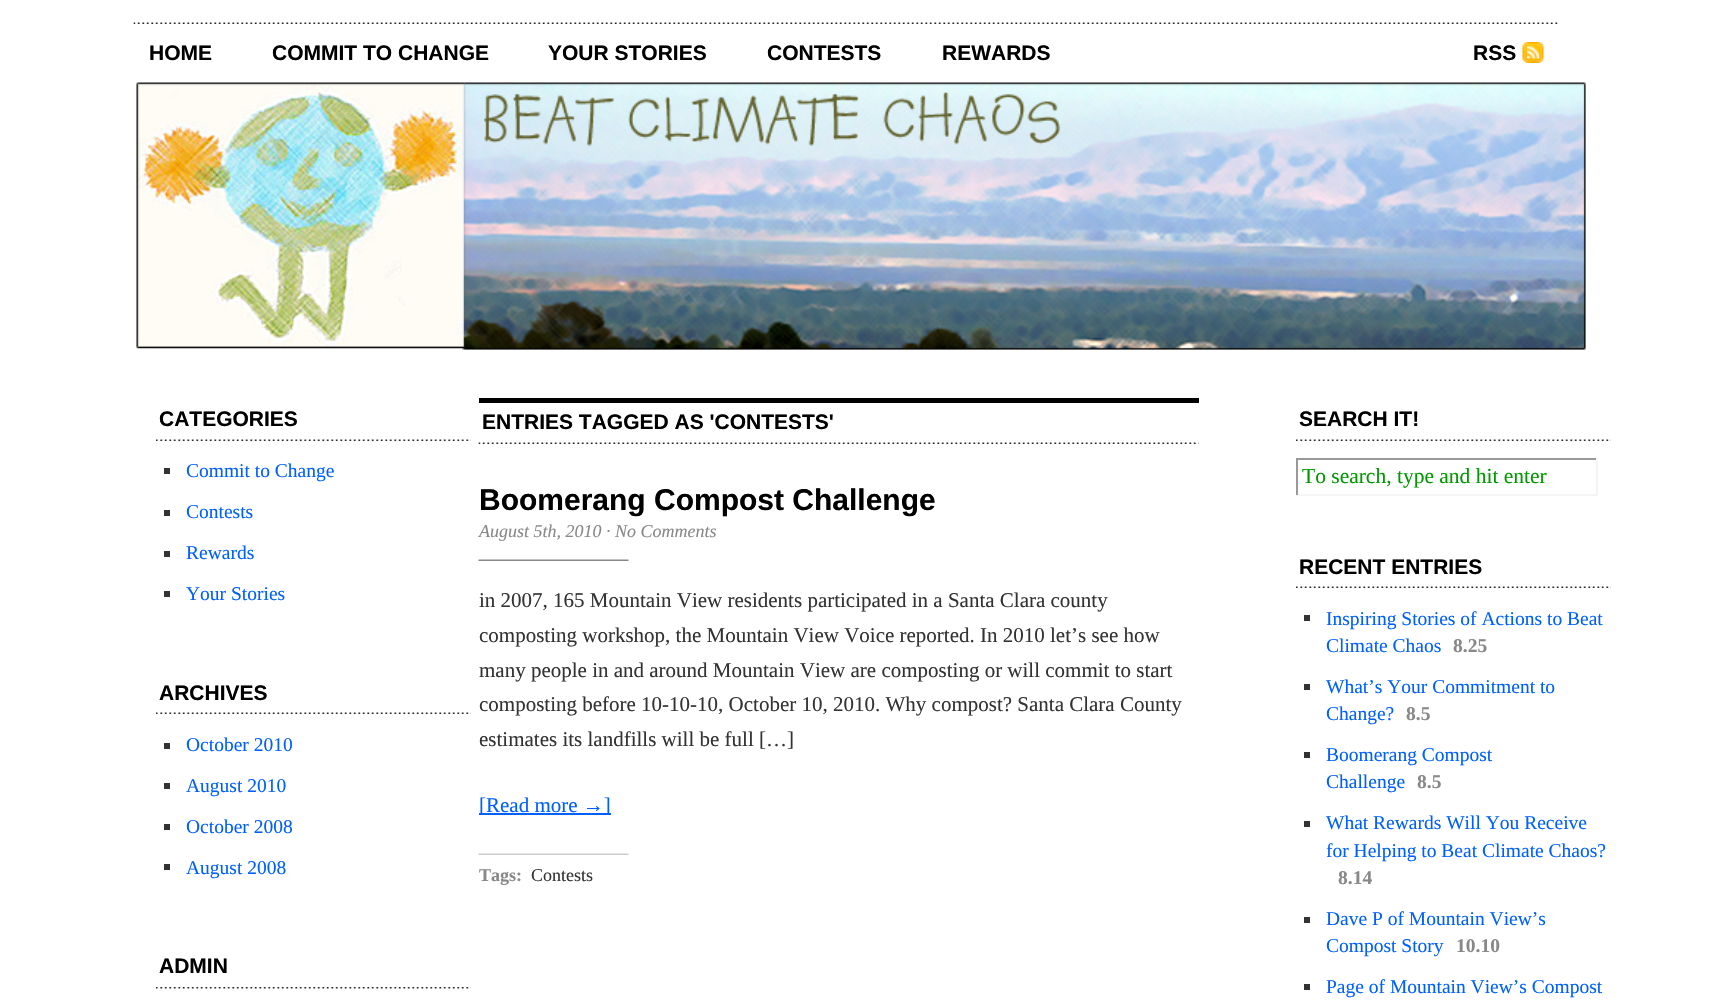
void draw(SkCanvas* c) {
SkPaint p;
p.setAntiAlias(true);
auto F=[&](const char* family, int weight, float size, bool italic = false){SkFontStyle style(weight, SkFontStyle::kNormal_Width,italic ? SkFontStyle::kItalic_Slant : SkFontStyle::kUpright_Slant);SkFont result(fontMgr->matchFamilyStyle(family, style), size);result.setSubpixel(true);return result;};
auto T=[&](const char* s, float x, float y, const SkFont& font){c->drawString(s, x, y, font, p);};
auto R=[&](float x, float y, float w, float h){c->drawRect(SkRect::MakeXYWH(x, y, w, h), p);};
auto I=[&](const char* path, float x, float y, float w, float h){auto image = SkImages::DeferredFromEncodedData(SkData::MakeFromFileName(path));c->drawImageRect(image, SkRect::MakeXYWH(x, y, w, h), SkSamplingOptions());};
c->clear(0xffffffff);
I("1.png",133,22,1425,2);
auto f1 = F("Liberation Sans",700,21);
p.setColor(0xff000000);
T("HOME",149,60,f1);
T("COMMIT TO CHANGE",272,60,f1);
T("YOUR STORIES",548,60,f1);
T("CONTESTS",767,60,f1);
T("REWARDS",942,60,f1);
T("RSS",1473,60,f1);
I("2.png",1522,42,22,21);
I("3.png",136,82,1450,268);
I("4.png",156,439,315,2);
T("CATEGORIES",159,426,f1);
p.setColor(0xff333333);
R(164,468,6,6);
auto f2 = F("Liberation Serif",400,19.5);
p.setColor(0xff0060ff);
T("Commit to Change",186,477,f2);
p.setColor(0xff333333);
R(164,510,6,6);
p.setColor(0xff0060ff);
T("Contests",186,518,f2);
p.setColor(0xff333333);
R(164,551,6,6);
p.setColor(0xff0060ff);
T("Rewards",186,559,f2);
p.setColor(0xff333333);
R(164,591,6,6);
p.setColor(0xff0060ff);
T("Your Stories",186,600,f2);
I("4.png",156,712,315,2);
p.setColor(0xff000000);
T("ARCHIVES",159,700,f1);
p.setColor(0xff333333);
R(164,743,6,6);
p.setColor(0xff0060ff);
T("October 2010",186,751,f2);
p.setColor(0xff333333);
R(164,783,6,6);
p.setColor(0xff0060ff);
T("August 2010",186,792,f2);
p.setColor(0xff333333);
R(164,824,6,6);
p.setColor(0xff0060ff);
T("October 2008",186,833,f2);
p.setColor(0xff333333);
R(164,864,6,6);
p.setColor(0xff0060ff);
T("August 2008",186,874,f2);
I("5.png",156,987,315,2);
p.setColor(0xff000000);
T("ADMIN",159,973,f1);
I("6.png",478,442,721,2);
R(479,398,720,5);
T("ENTRIES TAGGED AS 'CONTESTS'",482,429,f1);
auto f3 = F("Liberation Sans",700,30);
T("Boomerang Compost Challenge",479,510,f3);
I("7.png",478,559,151,2);
auto f4 = F("Liberation Serif",400,18,true);
p.setColor(0xff888888);
T("August 5th, 2010 · No Comments",479,537,f4);
auto f5 = F("Liberation Serif",400,21);
p.setColor(0xff333333);
T("in 2007, 165 Mountain View residents participated in a Santa Clara county",479,607,f5);
T("composting workshop, the Mountain View Voice reported. In 2010 let’s see how",479,642,f5);
T("many people in and around Mountain View are composting or will commit to start",479,677,f5);
T("composting before 10-10-10, October 10, 2010. Why compost? Santa Clara County",479,711,f5);
T("estimates its landfills will be full […]",479,746,f5);
p.setColor(0xff0060ff);
R(479,813,132,2);
T("[Read more →]",479,812,f5);
I("8.png",478,853,151,2);
auto f6 = F("Liberation Serif",700,18);
p.setColor(0xff888888);
T("Tags:",479,881,f6);
auto f7 = F("Liberation Serif",400,18);
p.setColor(0xff333333);
T("Contests",531,881,f7);
I("9.png",1296,439,315,2);
p.setColor(0xff000000);
T("SEARCH IT!",1299,426,f1);
p.setColor(0xff999999);
R(1296,458,302,2);
p.setColor(0xfff5f5f5);
R(1596,458,2,37);
R(1296,494,302,2);
p.setColor(0xff999999);
R(1296,458,2,37);
auto f8 = F("Liberation Serif",400,21.5);
p.setColor(0xff009900);
T("To search, type and hit enter",1302,483,f8);
I("9.png",1296,586,315,2);
p.setColor(0xff000000);
T("RECENT ENTRIES",1299,574,f1);
p.setColor(0xff333333);
R(1304,615,6,6);
p.setColor(0xff0060ff);
T("Inspiring Stories of Actions to Beat",1326,625,f2);
T("Climate Chaos",1326,652,f2);
auto f9 = F("Liberation Serif",700,19.5);
p.setColor(0xff888888);
T("8.25",1453,652,f9);
p.setColor(0xff333333);
R(1304,684,6,6);
p.setColor(0xff0060ff);
T("What’s Your Commitment to",1326,693,f2);
T("Change?",1326,720,f2);
p.setColor(0xff888888);
T("8.5",1406,720,f9);
p.setColor(0xff333333);
R(1304,752,6,6);
p.setColor(0xff0060ff);
T("Boomerang Compost",1326,761,f2);
T("Challenge",1326,788,f2);
p.setColor(0xff888888);
T("8.5",1417,788,f9);
p.setColor(0xff333333);
R(1304,821,6,6);
p.setColor(0xff0060ff);
T("What Rewards Will You Receive",1326,829,f2);
T("for Helping to Beat Climate Chaos?",1326,857,f2);
p.setColor(0xff888888);
T("8.14",1338,884,f9);
p.setColor(0xff333333);
R(1304,917,6,6);
p.setColor(0xff0060ff);
T("Dave P of Mountain View’s",1326,925,f2);
T("Compost Story",1326,952,f2);
p.setColor(0xff888888);
T("10.10",1456,952,f9);
p.setColor(0xff333333);
R(1304,984,6,6);
p.setColor(0xff0060ff);
T("Page of Mountain View’s Compost",1326,993,f2);
}
